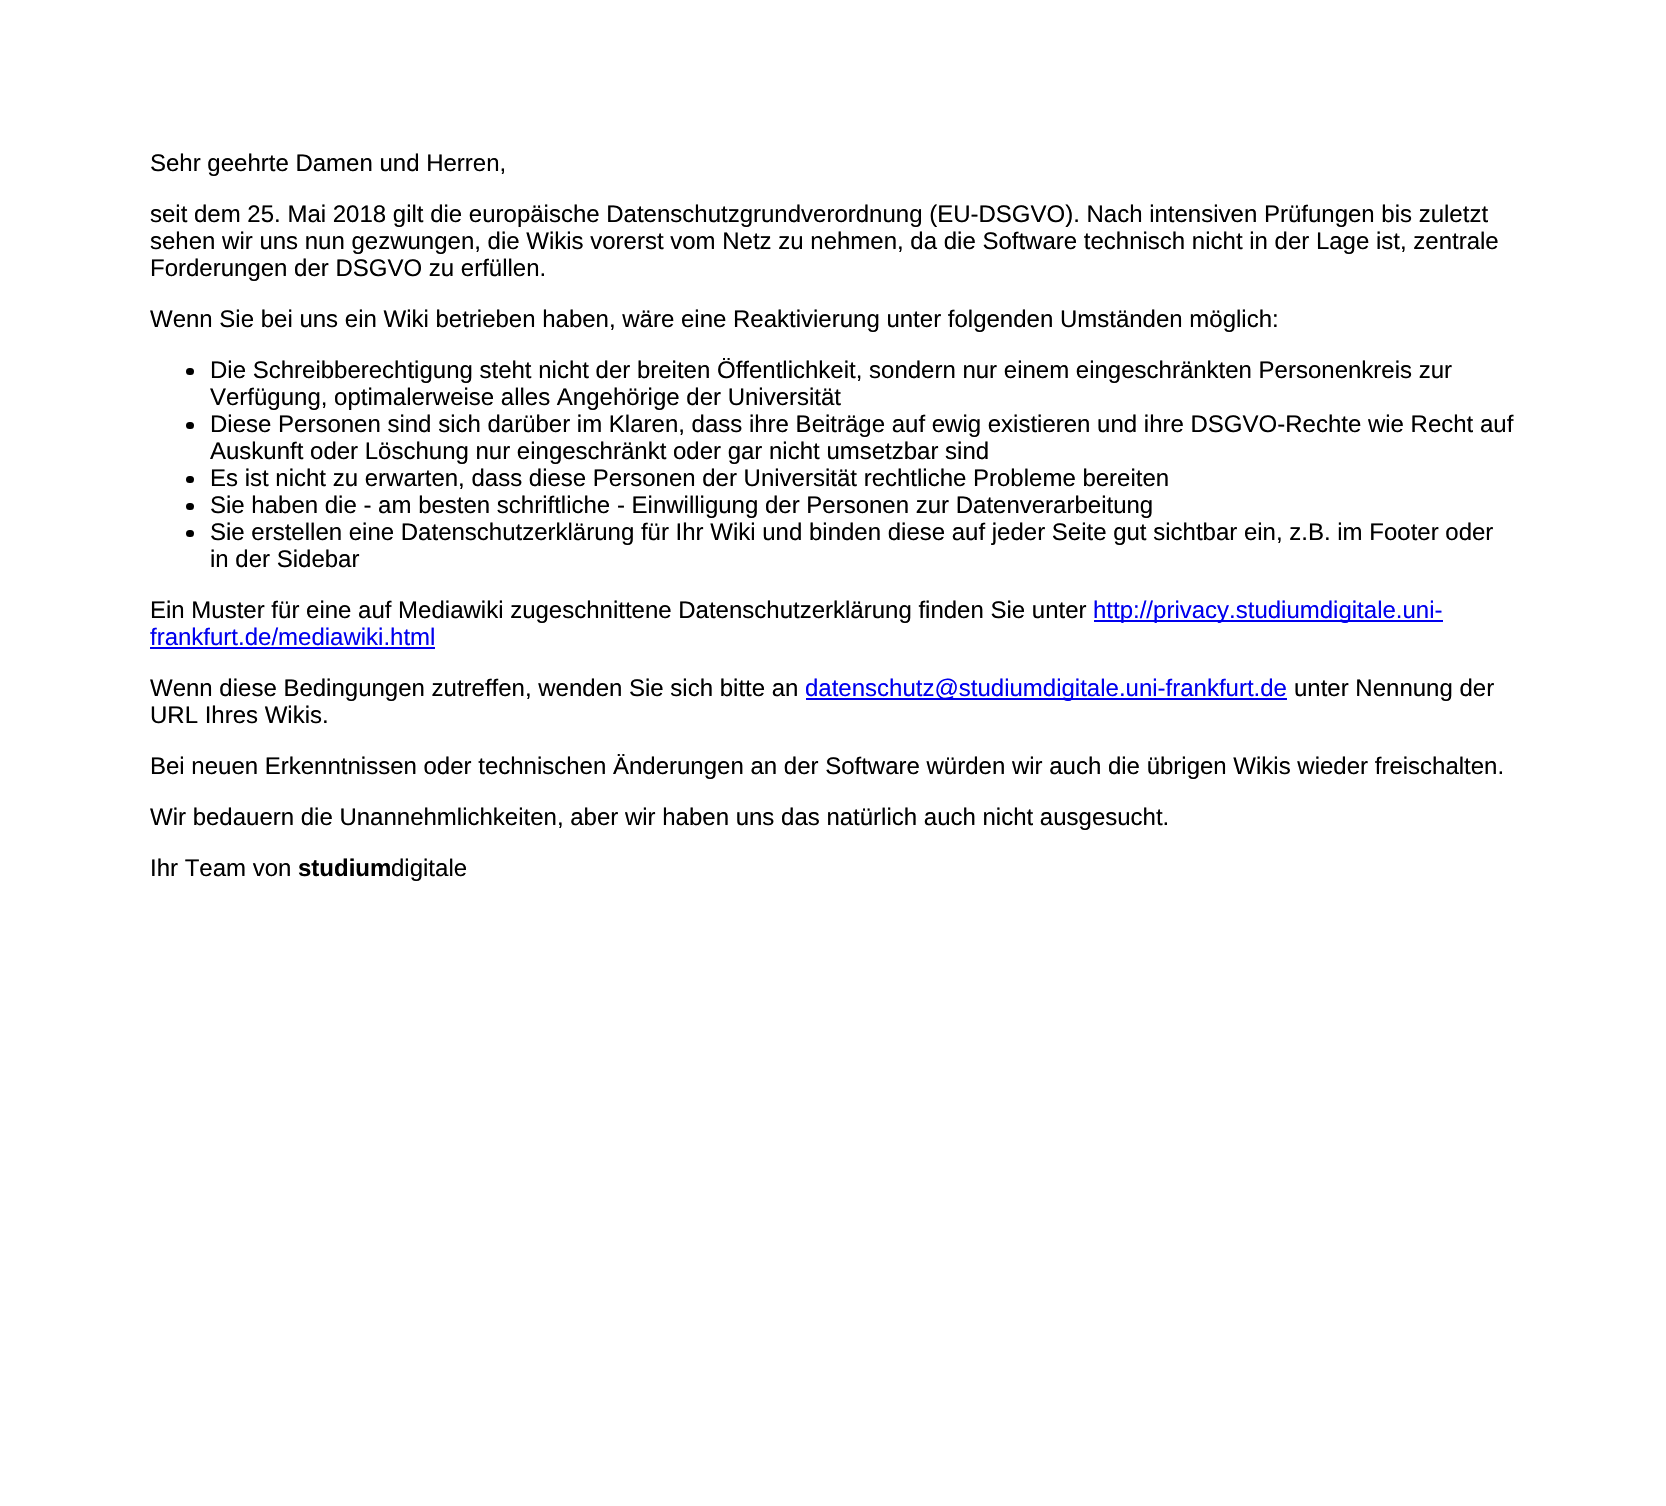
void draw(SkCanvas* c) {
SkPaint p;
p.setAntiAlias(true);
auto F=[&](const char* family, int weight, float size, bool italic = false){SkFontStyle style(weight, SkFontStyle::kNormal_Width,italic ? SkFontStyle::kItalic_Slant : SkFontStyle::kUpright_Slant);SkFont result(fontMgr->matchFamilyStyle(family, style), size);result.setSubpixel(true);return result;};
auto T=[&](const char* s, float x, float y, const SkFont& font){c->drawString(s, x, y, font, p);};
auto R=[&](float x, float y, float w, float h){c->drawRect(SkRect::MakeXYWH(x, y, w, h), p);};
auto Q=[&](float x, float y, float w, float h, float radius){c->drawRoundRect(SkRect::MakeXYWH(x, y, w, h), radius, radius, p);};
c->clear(0xffffffff);
auto f1 = F("Liberation Sans",400,24);
p.setColor(0xff000000);
T("Sehr geehrte Damen und Herren,",150,171,f1);
T("seit dem 25. Mai 2018 gilt die europäische Datenschutzgrundverordnung (EU-DSGVO). Nach intensiven Prüfungen bis zuletzt",150,222,f1);
T("sehen wir uns nun gezwungen, die Wikis vorerst vom Netz zu nehmen, da die Software technisch nicht in der Lage ist, zentrale",150,249,f1);
T("Forderungen der DSGVO zu erfüllen.",150,276,f1);
T("Wenn Sie bei uns ein Wiki betrieben haben, wäre eine Reaktivierung unter folgenden Umständen möglich:",150,327,f1);
Q(186,368,8,7,3.5);
T("Die Schreibberechtigung steht nicht der breiten Öffentlichkeit, sondern nur einem eingeschränkten Personenkreis zur",210,378,f1);
T("Verfügung, optimalerweise alles Angehörige der Universität",210,405,f1);
Q(186,422,8,7,3.5);
T("Diese Personen sind sich darüber im Klaren, dass ihre Beiträge auf ewig existieren und ihre DSGVO-Rechte wie Recht auf",210,432,f1);
T("Auskunft oder Löschung nur eingeschränkt oder gar nicht umsetzbar sind",210,459,f1);
Q(186,476,8,7,3.5);
T("Es ist nicht zu erwarten, dass diese Personen der Universität rechtliche Probleme bereiten",210,486,f1);
Q(186,503,8,7,3.5);
T("Sie haben die - am besten schriftliche - Einwilligung der Personen zur Datenverarbeitung",210,513,f1);
Q(186,530,8,7,3.5);
T("Sie erstellen eine Datenschutzerklärung für Ihr Wiki und binden diese auf jeder Seite gut sichtbar ein, z.B. im Footer oder",210,540,f1);
T("in der Sidebar",210,567,f1);
T("Ein Muster für eine auf Mediawiki zugeschnittene Datenschutzerklärung finden Sie unter",150,618,f1);
p.setColor(0xff0000ee);
R(1094,620,349,2);
T("http://privacy.studiumdigitale.uni-",1093,618,f1);
T("frankfurt.de/mediawiki.html",150,645,f1);
R(150,647,285,2);
p.setColor(0xff000000);
T("Wenn diese Bedingungen zutreffen, wenden Sie sich bitte an",150,696,f1);
p.setColor(0xff0000ee);
R(806,698,481,2);
T("datenschutz@studiumdigitale.uni-frankfurt.de",805,696,f1);
p.setColor(0xff000000);
T("unter Nennung der",1294,696,f1);
T("URL Ihres Wikis.",150,723,f1);
T("Bei neuen Erkenntnissen oder technischen Änderungen an der Software würden wir auch die übrigen Wikis wieder freischalten.",150,774,f1);
T("Wir bedauern die Unannehmlichkeiten, aber wir haben uns das natürlich auch nicht ausgesucht.",150,825,f1);
T("Ihr Team von",150,876,f1);
auto f2 = F("Liberation Sans",700,24);
T("studium",298,876,f2);
T("digitale",391,876,f1);
}
